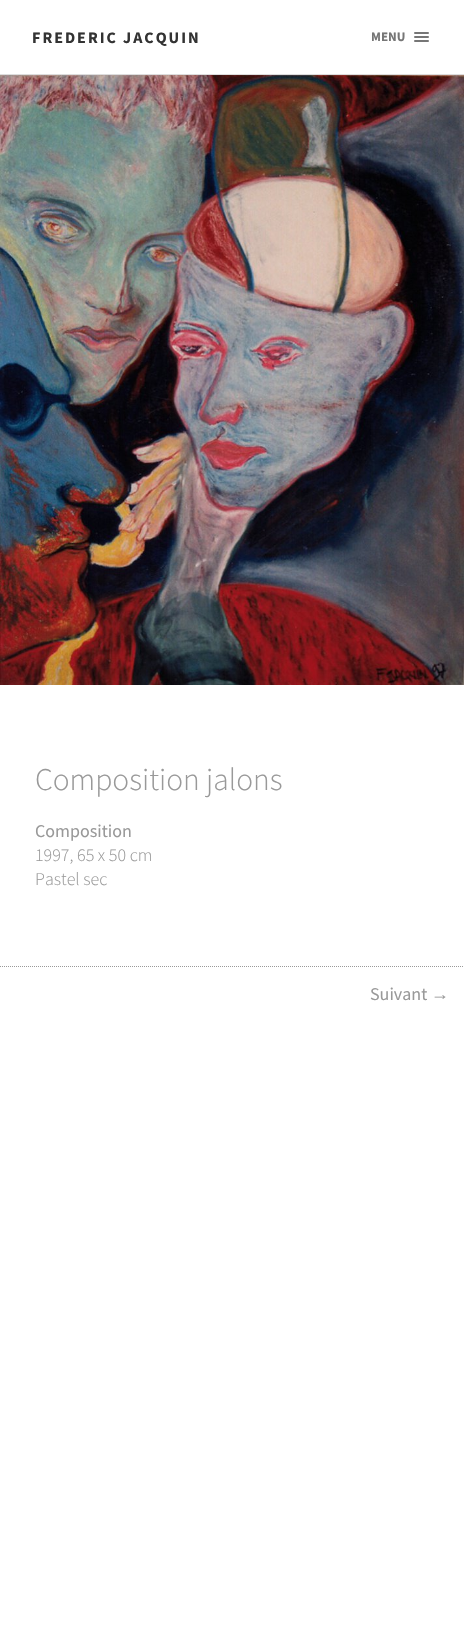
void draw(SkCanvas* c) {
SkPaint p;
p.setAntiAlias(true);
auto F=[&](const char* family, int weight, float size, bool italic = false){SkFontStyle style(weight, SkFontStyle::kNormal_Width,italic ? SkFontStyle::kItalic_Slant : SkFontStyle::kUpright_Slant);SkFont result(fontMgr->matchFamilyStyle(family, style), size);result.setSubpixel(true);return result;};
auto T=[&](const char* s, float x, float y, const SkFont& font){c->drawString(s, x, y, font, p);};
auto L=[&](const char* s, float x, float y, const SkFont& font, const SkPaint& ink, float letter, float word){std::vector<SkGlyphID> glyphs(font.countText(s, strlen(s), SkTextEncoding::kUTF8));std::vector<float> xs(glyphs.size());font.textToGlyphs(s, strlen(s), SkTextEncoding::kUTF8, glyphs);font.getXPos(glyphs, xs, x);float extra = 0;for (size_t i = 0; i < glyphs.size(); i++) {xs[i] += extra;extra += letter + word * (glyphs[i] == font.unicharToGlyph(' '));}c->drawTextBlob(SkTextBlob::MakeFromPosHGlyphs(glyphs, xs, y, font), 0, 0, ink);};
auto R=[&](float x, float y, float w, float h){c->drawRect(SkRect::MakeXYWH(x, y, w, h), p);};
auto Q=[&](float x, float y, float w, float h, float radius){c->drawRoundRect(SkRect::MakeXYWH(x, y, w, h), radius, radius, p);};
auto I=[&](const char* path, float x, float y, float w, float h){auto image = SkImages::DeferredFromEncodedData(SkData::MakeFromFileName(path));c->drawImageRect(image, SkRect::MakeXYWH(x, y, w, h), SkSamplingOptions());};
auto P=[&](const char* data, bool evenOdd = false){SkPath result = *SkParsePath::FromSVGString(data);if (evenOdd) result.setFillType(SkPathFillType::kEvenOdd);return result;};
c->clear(0xffffffff);
p.setColor(0xffdddddd);
R(0,74,464,1);
auto f1 = F("Source Sans Pro",700,16);
p.setColor(0xff333333);
L("FREDERIC JACQUIN",32,43,f1,p,2,0);
auto f2 = F("Source Sans Pro",700,13);
p.setColor(0xff767676);
T("MENU",371,41,f2);
Q(414,32,15,2,1);
Q(414,36,15,2,1);
Q(414,40,15,2,1);
I("1.png",0,75,464,610);
auto f3 = F("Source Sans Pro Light",300,31.5);
p.setColor(0xff999999);
T("Composition jalons",35,790,f3);
auto f4 = F("Source Sans Pro",400,18);
T("Composition",35,837,f4);
auto f5 = F("Source Sans Pro Light",300,18);
T("1997, 65 x 50 cm",35,861,f5);
T("Pastel sec",35,885,f5);
p.setStroke(true);
p.setStrokeWidth(1);
p.setPathEffect(SkDashPathEffect::Make({{1,1}}, 0));
c->drawPath(P("M0 966.5h464"),p);
p.setPathEffect(nullptr);
p.setStroke(false);
T("Suivant",370,1000,f4);
auto f6 = F("Liberation Sans",400,18);
T("→",431,1000,f6);
}
